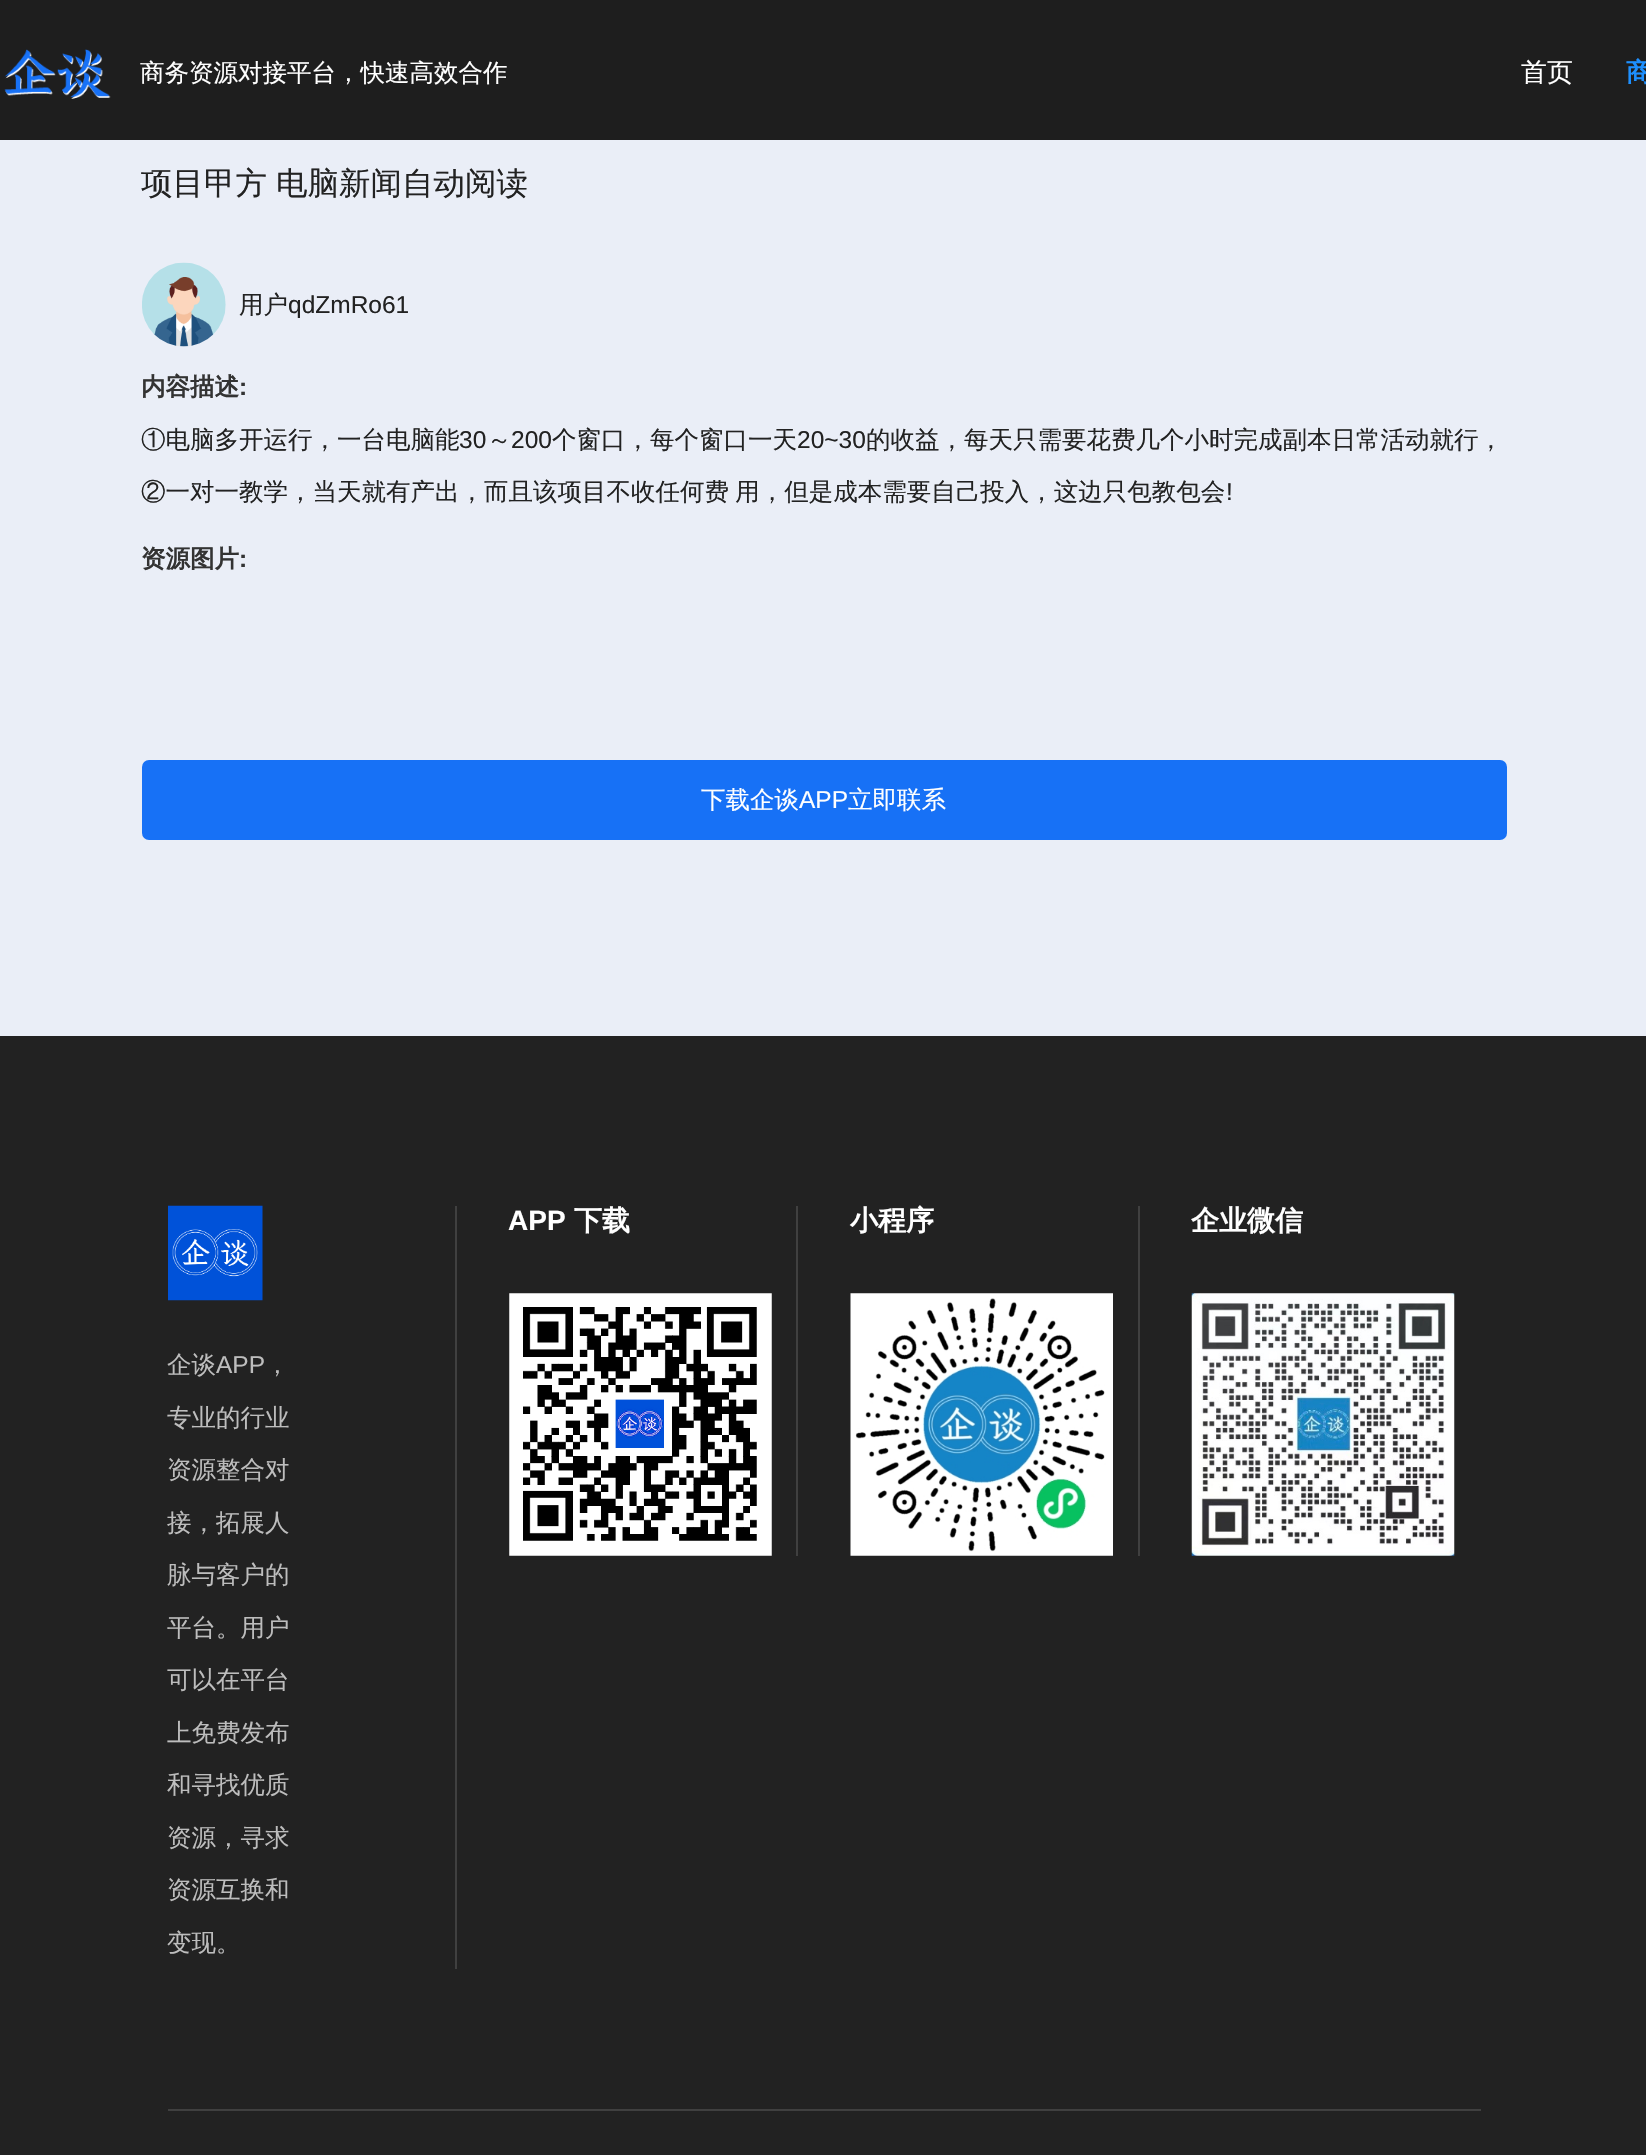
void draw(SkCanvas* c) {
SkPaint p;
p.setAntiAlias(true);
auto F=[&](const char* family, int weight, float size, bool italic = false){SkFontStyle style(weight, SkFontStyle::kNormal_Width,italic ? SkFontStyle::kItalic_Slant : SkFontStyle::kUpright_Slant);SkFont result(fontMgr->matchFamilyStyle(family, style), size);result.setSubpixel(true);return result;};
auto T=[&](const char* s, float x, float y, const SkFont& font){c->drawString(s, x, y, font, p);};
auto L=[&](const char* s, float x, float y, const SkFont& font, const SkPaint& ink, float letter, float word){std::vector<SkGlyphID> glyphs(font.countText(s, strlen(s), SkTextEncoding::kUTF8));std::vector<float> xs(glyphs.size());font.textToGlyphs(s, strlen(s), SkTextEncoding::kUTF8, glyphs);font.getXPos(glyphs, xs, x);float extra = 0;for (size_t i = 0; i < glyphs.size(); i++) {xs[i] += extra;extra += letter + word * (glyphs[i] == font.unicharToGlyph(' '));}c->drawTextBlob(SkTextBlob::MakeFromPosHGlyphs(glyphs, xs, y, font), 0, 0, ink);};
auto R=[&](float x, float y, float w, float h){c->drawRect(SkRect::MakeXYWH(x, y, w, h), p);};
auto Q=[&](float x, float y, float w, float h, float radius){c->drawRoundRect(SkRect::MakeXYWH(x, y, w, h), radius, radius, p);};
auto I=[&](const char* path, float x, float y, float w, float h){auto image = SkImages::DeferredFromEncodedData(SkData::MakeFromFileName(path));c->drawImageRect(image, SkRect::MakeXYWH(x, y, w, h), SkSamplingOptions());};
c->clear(0xffeaeef7);
p.setColor(0xff1e1e1e);
R(0,0,1646,140);
I("1.png",4,49,107,50);
auto f1 = F("WenQuanYi Zen Hei",500,24.5);
p.setColor(0xffffffff);
T("商务资源对接平台，快速高效合作",140,81,f1);
auto f2 = F("WenQuanYi Zen Hei",500,26);
T("首页",1521,81,f2);
auto f3 = F("WenQuanYi Zen Hei",700,26);
p.setColor(0xff1e90ff);
T("商",1626,81,f3);
auto f4 = F("WenQuanYi Zen Hei",500,31.5);
p.setColor(0xff222222);
T("项目甲方",141,194,f4);
T("电脑新闻自动阅读",276,194,f4);
I("2.png",142,262,84,85);
T("用户",239,313,f1);
auto f5 = F("Liberation Sans",400,24.5);
T("qdZmRo61",288,313,f5);
auto f6 = F("WenQuanYi Zen Hei",700,24.5);
p.setColor(0xff333333);
T("内容描述",141,395,f6);
auto f7 = F("Liberation Sans",700,24.5);
T(":",239,395,f7);
p.setColor(0xff222222);
T("①电脑多开运行，一台电脑能",141,448,f1);
T("30",459,448,f5);
T("～",487,448,f1);
T("200",511,448,f5);
T("个窗口，每个窗口一天",552,448,f1);
T("20~30",797,448,f5);
T("的收益，每天只需要花费几个小时完成副本日常活动就行，",866,448,f1);
L("②一对一教学，当天就有产出，而且该项目不收任何费 用，但是成本需要自己投入，这边只包教包会",141,500,f1,p,0,-1);
T("!",1226,500,f5);
p.setColor(0xff333333);
T("资源图片",141,567,f6);
T(":",239,567,f7);
p.setColor(0xff1771f6);
Q(142,760,1365,80,7);
p.setColor(0xffffffff);
T("下载企谈",701,808,f1);
T("APP",799,808,f5);
T("立即联系",848,808,f1);
p.setColor(0xff222222);
R(0,1036,1646,1119);
p.setColor(0xff404040);
R(796,1206,2,350);
auto f8 = F("Liberation Sans",700,28);
p.setColor(0xffffffff);
T("APP",508,1230,f8);
auto f9 = F("WenQuanYi Zen Hei",700,28);
T("下载",574,1230,f9);
I("3.png",509,1293,263,263);
p.setColor(0xff404040);
R(1138,1206,2,350);
p.setColor(0xffffffff);
T("小程序",850,1230,f9);
I("4.png",850,1293,263,263);
T("企业微信",1191,1230,f9);
I("5.png",1191,1293,264,263);
p.setColor(0xff404040);
R(455,1206,2,763);
I("6.png",168,1205,95,96);
p.setColor(0xffbdbdbd);
T("企谈",167,1373,f1);
T("APP",216,1373,f5);
T("，",265,1373,f1);
T("专业的行业",167,1426,f1);
T("资源整合对",167,1478,f1);
T("接，拓展人",167,1531,f1);
T("脉与客户的",167,1583,f1);
T("平台。用户",167,1636,f1);
T("可以在平台",167,1688,f1);
T("上免费发布",167,1741,f1);
T("和寻找优质",167,1793,f1);
T("资源，寻求",167,1846,f1);
T("资源互换和",167,1898,f1);
T("变现。",167,1951,f1);
p.setColor(0xff404040);
R(168,2109,1313,2);
}
